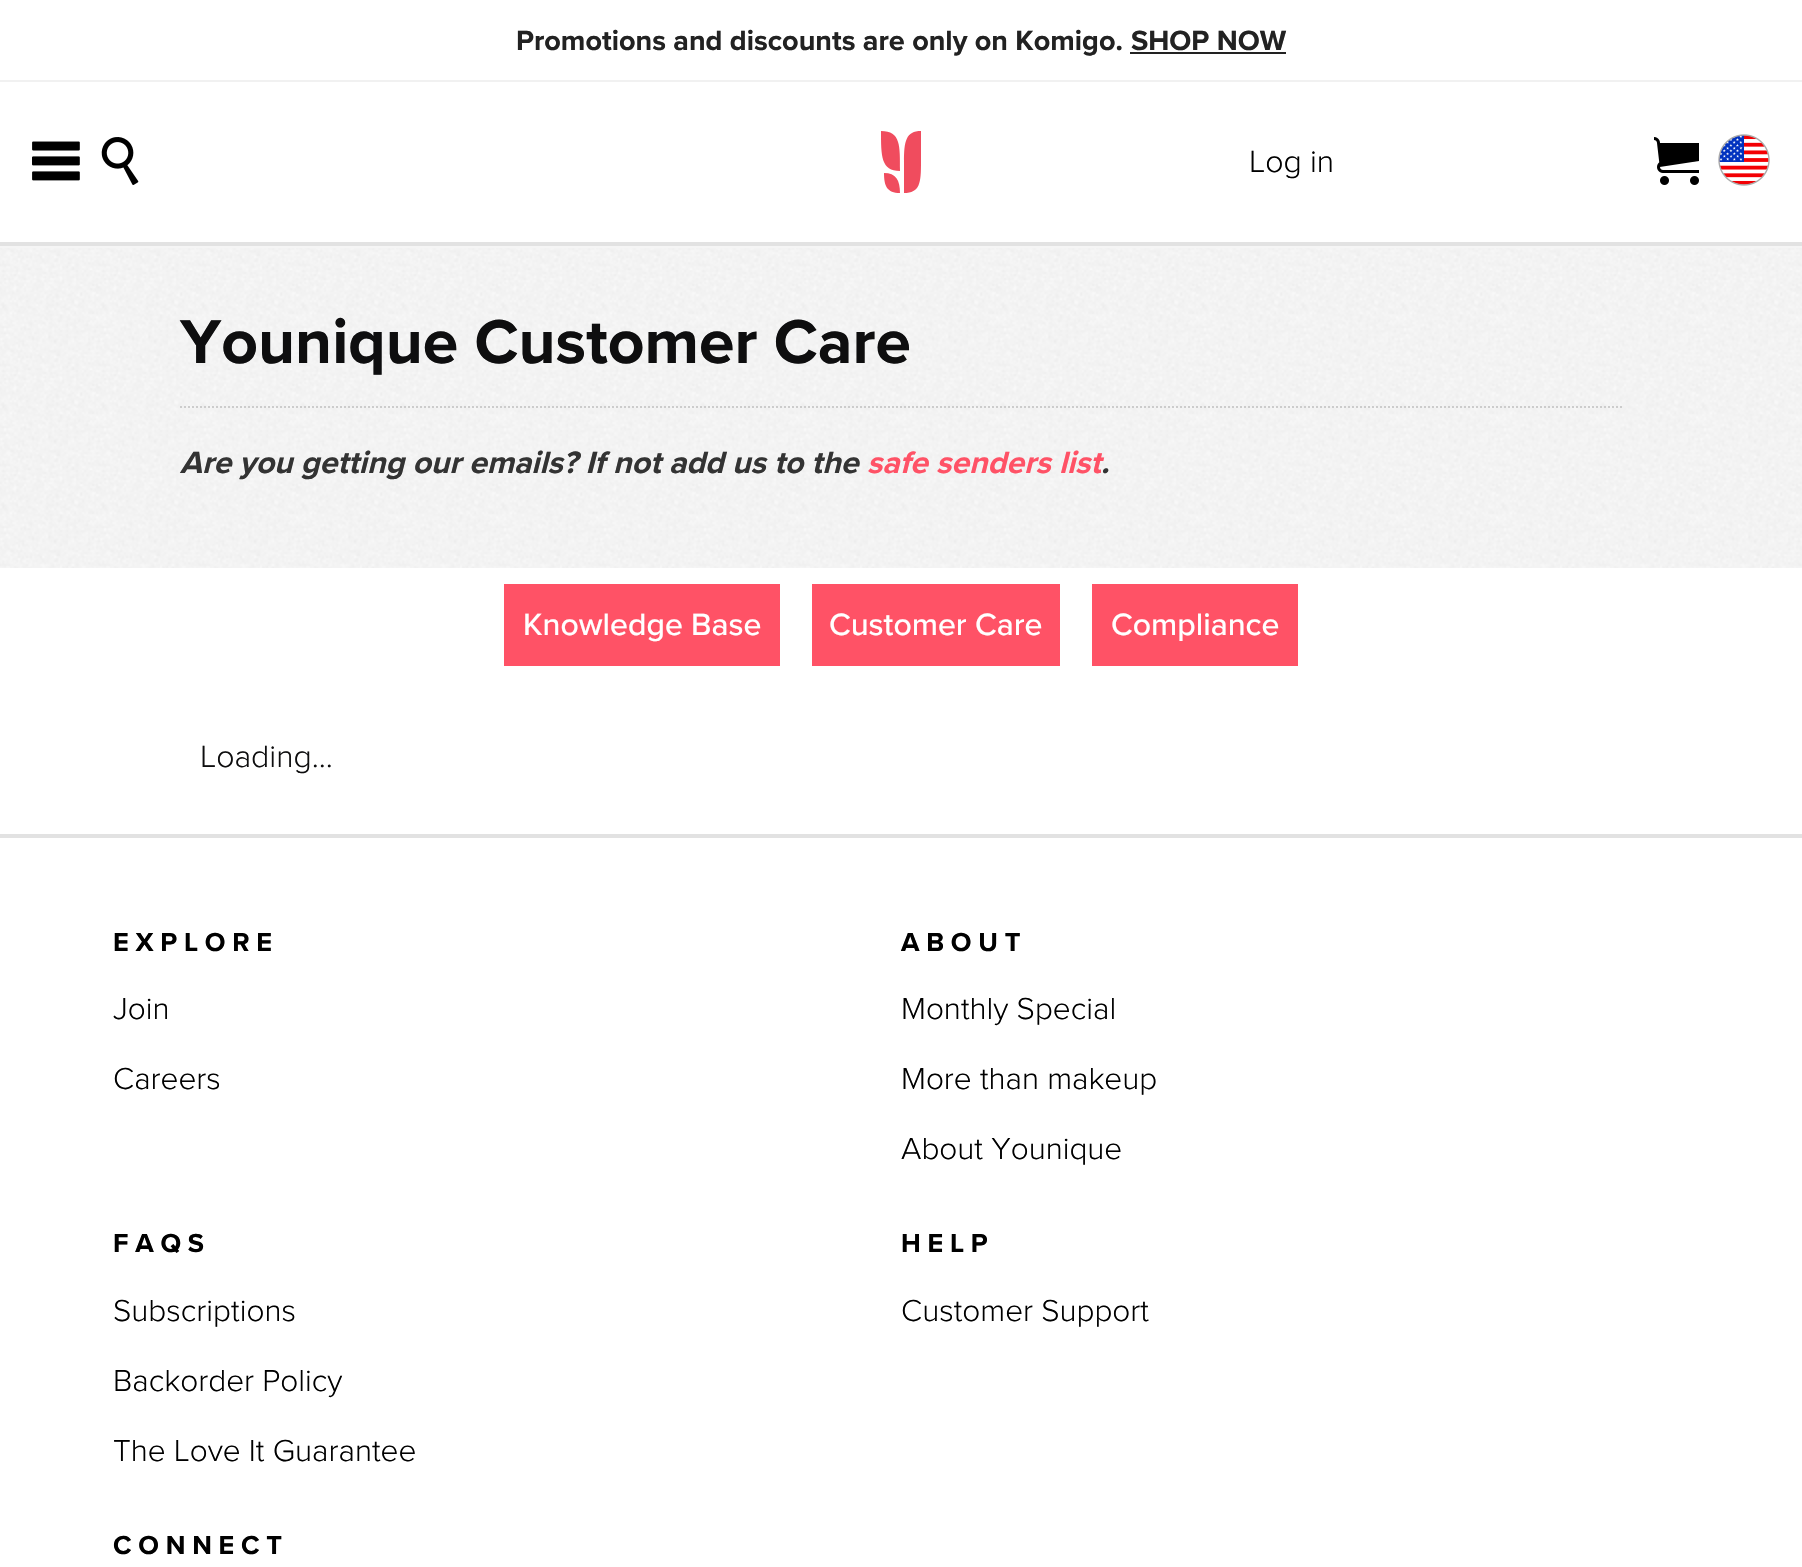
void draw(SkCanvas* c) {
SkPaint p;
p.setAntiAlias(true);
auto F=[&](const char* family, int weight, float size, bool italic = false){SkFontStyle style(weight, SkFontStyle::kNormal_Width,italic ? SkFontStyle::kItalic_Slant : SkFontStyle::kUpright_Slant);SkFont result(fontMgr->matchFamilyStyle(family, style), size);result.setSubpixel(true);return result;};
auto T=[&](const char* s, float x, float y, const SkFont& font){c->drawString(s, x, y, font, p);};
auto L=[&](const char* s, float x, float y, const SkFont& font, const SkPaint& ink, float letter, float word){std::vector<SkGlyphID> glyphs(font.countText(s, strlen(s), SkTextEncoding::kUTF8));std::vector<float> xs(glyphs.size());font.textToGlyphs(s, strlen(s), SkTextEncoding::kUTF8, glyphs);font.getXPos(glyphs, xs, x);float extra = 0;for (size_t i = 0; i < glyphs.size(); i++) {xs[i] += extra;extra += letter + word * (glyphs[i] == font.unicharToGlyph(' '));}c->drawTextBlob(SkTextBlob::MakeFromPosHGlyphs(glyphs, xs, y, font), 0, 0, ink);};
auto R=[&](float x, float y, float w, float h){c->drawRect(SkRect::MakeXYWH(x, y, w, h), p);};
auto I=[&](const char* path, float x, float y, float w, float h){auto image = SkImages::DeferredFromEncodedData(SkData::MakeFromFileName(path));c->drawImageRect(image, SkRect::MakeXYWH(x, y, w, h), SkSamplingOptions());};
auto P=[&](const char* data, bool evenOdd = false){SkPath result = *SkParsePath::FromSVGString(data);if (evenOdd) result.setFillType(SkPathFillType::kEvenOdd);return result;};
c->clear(0xffffffff);
p.setColor(0xfff1f1f1);
R(0,80,1802,2);
auto f1 = F("Proxima Nova",700,28.8);
p.setColor(0xff222222);
T("Promotions and discounts are only on Komigo.",516,50,f1);
T("SHOP NOW",1131,50,f1);
R(1130,52,156,2);
p.setColor(0xffe2e2e2);
R(0,242,1802,4);
I("1.png",32,141,48,40);
I("2.png",101,137,38,48);
p.setColor(0xfff04c5e);
c->drawPath(P("M921 131c-15 0-17 10-17 31v31c16 0 17-10 17-31zm-40 0c0 25 0 40 19 40c0-25 1-40-19-40zm3 42c12 0 16 7 16 20c-13 0-16-7-16-20z"),p);
auto f2 = F("Proxima Nova",300,32);
p.setColor(0xff000000);
T("Log in",1249,172,f2);
I("3.png",1654,137,45,48);
I("4.png",1718,134,52,52);
p.setColor(0xfff5f5f5);
R(0,246,1802,2);
I("5.png",0,248,1802,320);
auto f3 = F("Proxima Nova",700,64);
p.setColor(0xff0e0e0f);
T("Younique Customer Care",180,363,f3);
p.setStroke(true);
p.setStrokeWidth(2);
p.setColor(0xffcccccc);
p.setPathEffect(SkDashPathEffect::Make({{2,2}}, 0));
c->drawPath(P("M180 407h1442"),p);
p.setPathEffect(nullptr);
auto f4 = F("Proxima Nova",700,32,true);
p.setStroke(false);
p.setColor(0xff333333);
T("Are you getting our emails? If not add us to the",180,473,f4);
p.setColor(0xffff5266);
T("safe senders list",867,473,f4);
p.setColor(0xff333333);
T(".",1101,473,f4);
p.setColor(0xffff5266);
R(504,584,276,82);
auto f5 = F("Proxima Nova",500,32);
p.setColor(0xffffffff);
T("Knowledge Base",523,635,f5);
p.setColor(0xffff5266);
R(812,584,248,82);
p.setColor(0xffffffff);
T("Customer Care",829,635,f5);
p.setColor(0xffff5266);
R(1092,584,206,82);
p.setColor(0xffffffff);
T("Compliance",1111,635,f5);
p.setColor(0xff0e0e0f);
T("Loading...",200,767,f2);
p.setColor(0xffe2e2e2);
R(0,834,1802,4);
auto f6 = F("Proxima Nova",700,27);
p.setColor(0xff000000);
L("EXPLORE",113,951,f6,p,6.75,0);
auto f7 = F("Proxima Nova",300,31.5);
T("Join",113,1019,f7);
T("Careers",113,1089,f7);
L("ABOUT",901,951,f6,p,6.75,0);
T("Monthly Special",901,1019,f7);
T("More than makeup",901,1089,f7);
T("About Younique",901,1159,f7);
L("FAQS",113,1252,f6,p,6.75,0);
T("Subscriptions",113,1321,f7);
T("Backorder Policy",113,1391,f7);
T("The Love It Guarantee",113,1461,f7);
L("HELP",901,1252,f6,p,6.75,0);
T("Customer Support",901,1321,f7);
L("CONNECT",113,1554,f6,p,6.75,0);
}
